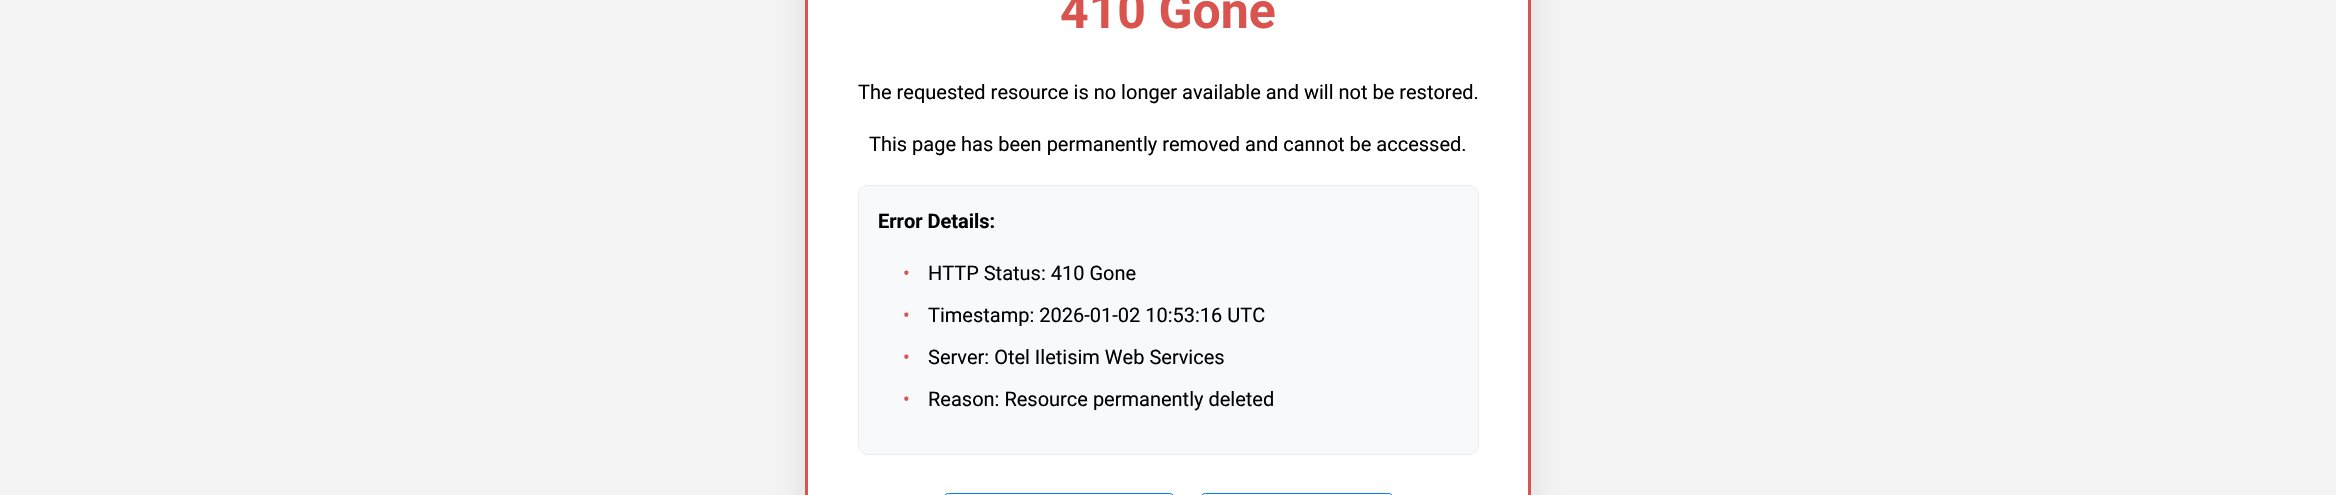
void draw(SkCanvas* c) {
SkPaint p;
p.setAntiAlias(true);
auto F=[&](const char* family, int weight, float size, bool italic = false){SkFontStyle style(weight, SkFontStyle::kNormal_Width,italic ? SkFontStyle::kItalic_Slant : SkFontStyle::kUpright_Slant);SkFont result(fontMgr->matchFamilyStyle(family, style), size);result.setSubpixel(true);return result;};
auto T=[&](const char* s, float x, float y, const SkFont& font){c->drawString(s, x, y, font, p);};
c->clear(0xfff4f4f4);
p.setColor(0x1a000000);
p.setMaskFilter(SkMaskFilter::MakeBlur(kNormal_SkBlurStyle, 15.5));
c->drawRoundRect(SkRect::MakeXYWH(805,-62,726,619),15,15,p);
p.setMaskFilter(nullptr);
p.setColor(0xffffffff);
c->drawRect(SkRect::MakeXYWH(806.5,-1.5,723,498),p);
p.setStroke(true);
p.setStrokeWidth(3);
p.setColor(0xffd9534f);
c->drawRect(SkRect::MakeXYWH(806.5,-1.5,723,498),p);
auto f1 = F("Roboto",700,50);
p.setStroke(false);
T("410 Gone",1060,28,f1);
auto f2 = F("Roboto",400,20);
p.setColor(0xff000000);
T("The requested resource is no longer available and will not be restored.",858,99,f2);
T("This page has been permanently removed and cannot be accessed.",869,151,f2);
p.setColor(0xfff8f9fa);
c->drawRoundRect(SkRect::MakeXYWH(858.5,185.5,620,269),9.5,9.5,p);
p.setStroke(true);
p.setStrokeWidth(1);
p.setColor(0xffe9ecef);
c->drawRoundRect(SkRect::MakeXYWH(858.5,185.5,620,269),9.5,9.5,p);
auto f3 = F("Roboto",700,20);
p.setStroke(false);
p.setColor(0xff000000);
T("Error Details:",878,228,f3);
p.setColor(0xffd9534f);
T("•",903,280,f2);
p.setColor(0xff000000);
T("HTTP Status: 410 Gone",928,280,f2);
p.setColor(0xffd9534f);
T("•",903,322,f2);
p.setColor(0xff000000);
T("Timestamp: 2026-01-02 10:53:16 UTC",928,322,f2);
p.setColor(0xffd9534f);
T("•",903,364,f2);
p.setColor(0xff000000);
T("Server: Otel Iletisim Web Services",928,364,f2);
p.setColor(0xffd9534f);
T("•",903,406,f2);
p.setColor(0xff000000);
T("Reason: Resource permanently deleted",928,406,f2);
p.setStroke(true);
p.setColor(0xff007bff);
c->drawRoundRect(SkRect::MakeXYWH(943.5,493.5,231,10),7.5,7.5,p);
c->drawRoundRect(SkRect::MakeXYWH(1200.5,493.5,193,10),7.5,7.5,p);
}
